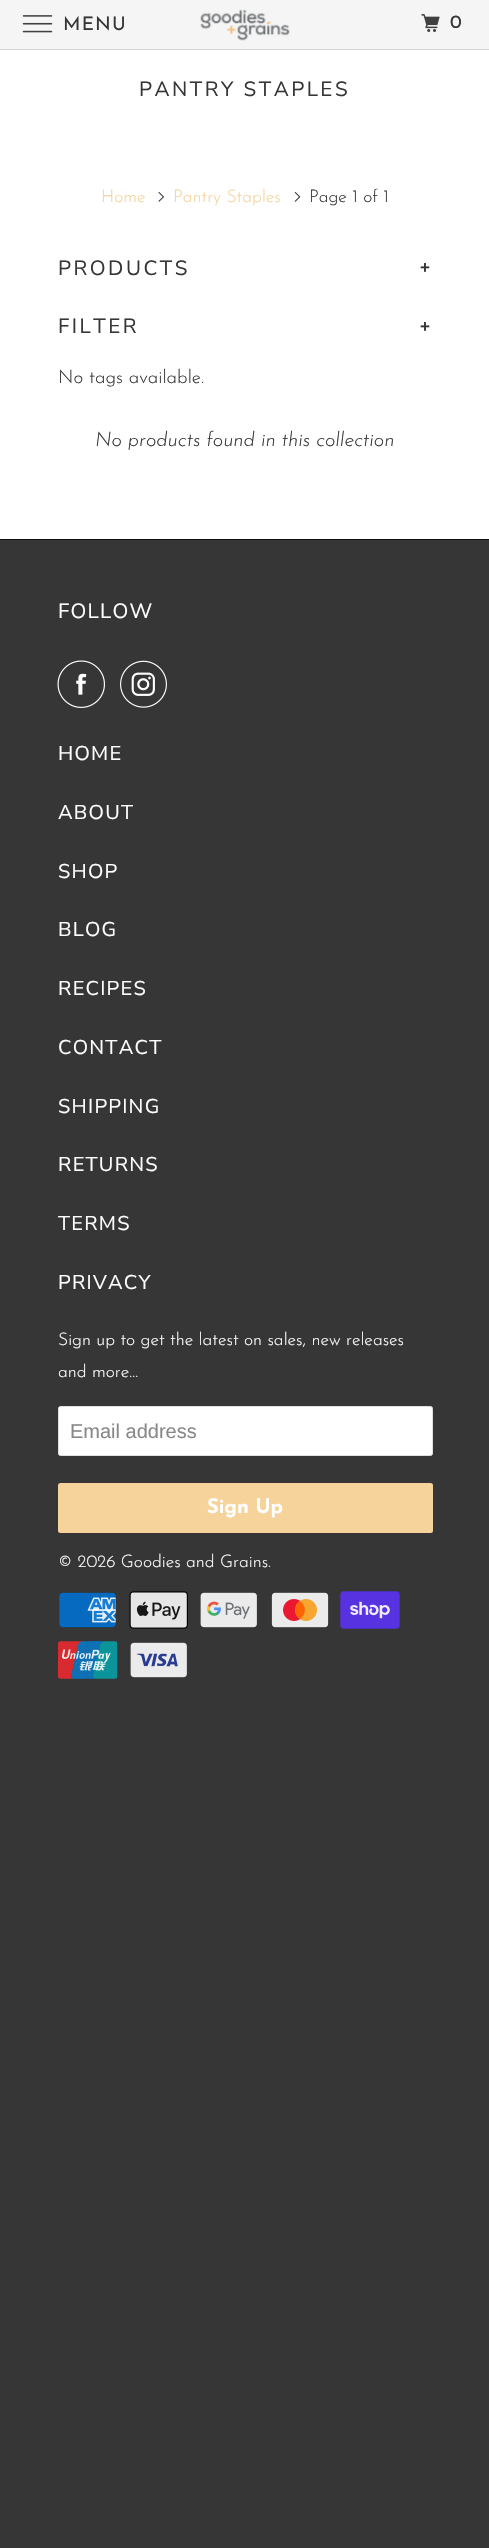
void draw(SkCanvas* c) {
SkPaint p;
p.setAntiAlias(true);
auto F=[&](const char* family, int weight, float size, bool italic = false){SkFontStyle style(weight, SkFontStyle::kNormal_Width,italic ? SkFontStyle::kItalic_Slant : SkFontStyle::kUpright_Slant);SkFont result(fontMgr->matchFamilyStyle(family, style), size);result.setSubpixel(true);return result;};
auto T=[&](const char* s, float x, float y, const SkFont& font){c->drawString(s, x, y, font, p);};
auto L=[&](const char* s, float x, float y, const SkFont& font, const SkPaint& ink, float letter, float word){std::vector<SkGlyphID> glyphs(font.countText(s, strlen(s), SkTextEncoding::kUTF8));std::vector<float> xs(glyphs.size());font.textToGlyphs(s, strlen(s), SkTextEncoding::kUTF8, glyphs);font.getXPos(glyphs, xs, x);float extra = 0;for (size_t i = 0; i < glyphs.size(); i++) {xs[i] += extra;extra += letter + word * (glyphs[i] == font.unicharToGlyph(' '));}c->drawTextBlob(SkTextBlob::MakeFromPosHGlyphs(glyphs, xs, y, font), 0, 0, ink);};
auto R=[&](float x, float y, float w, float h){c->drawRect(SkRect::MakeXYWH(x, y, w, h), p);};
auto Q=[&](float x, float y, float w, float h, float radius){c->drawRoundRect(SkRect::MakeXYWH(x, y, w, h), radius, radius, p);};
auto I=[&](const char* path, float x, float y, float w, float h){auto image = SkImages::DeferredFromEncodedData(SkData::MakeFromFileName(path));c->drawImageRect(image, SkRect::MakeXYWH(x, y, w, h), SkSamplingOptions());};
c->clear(0xff363636);
p.setColor(0xfff5f5f5);
R(0,0,489,49);
p.setColor(0xffd5d5d5);
R(0,49,489,1);
I("1.png",22,15,31,18);
auto f1 = F("Josefin Sans",400,18.75);
p.setColor(0xff363636);
L("MENU",63,30,f1,p,1.25,0);
I("2.png",200,9,90,32);
I("3.png",421,14,19,18);
L("0",450,28,f1,p,1.25,0);
p.setColor(0xffffffff);
R(0,50,489,489);
auto f2 = F("Nunito Sans",400,20.6);
p.setColor(0xff363636);
L("PANTRY STAPLES",139,96,f2,p,2.5,0);
auto f3 = F("Josefin Sans",300,17.5);
p.setColor(0xfff5d39b);
T("Home",101,202,f3);
I("4.png",158,192,7,10);
T("Pantry Staples",173,202,f3);
I("5.png",294,192,7,10);
p.setColor(0xff363636);
T("Page 1 of 1",309,202,f3);
L("PRODUCTS",58,275,f2,p,2.5,0);
auto f4 = F("Liberation Sans",700,17);
L("+",420,273,f4,p,2.5,0);
L("FILTER",58,333,f2,p,2.5,0);
L("+",420,332,f4,p,2.5,0);
auto f5 = F("Josefin Sans",300,18.75);
T("No tags available.",58,383,f5);
auto f6 = F("Josefin Sans",300,20,true);
T("No products found in this collection",95,446,f6);
p.setColor(0xff111111);
R(0,539,489,1);
p.setColor(0xffffffff);
L("FOLLOW",58,618,f2,p,1.25,0);
I("6.png",57,660,48,48);
I("7.png",120,660,47,48);
auto f7 = F("Nunito Sans",400,20);
L("HOME",58,760,f7,p,1.25,0);
L("ABOUT",58,819,f7,p,1.25,0);
L("SHOP",58,878,f7,p,1.25,0);
L("BLOG",58,936,f7,p,1.25,0);
L("RECIPES",58,995,f7,p,1.25,0);
L("CONTACT",58,1054,f7,p,1.25,0);
L("SHIPPING",58,1113,f7,p,1.25,0);
L("RETURNS",58,1171,f7,p,1.25,0);
L("TERMS",58,1230,f7,p,1.25,0);
L("PRIVACY",58,1289,f7,p,1.25,0);
T("Sign up to get the latest on sales, new releases",58,1345,f3);
T("and more…",58,1377,f3);
c->drawRoundRect(SkRect::MakeXYWH(58.5,1406.5,374,49),2,2,p);
p.setStroke(true);
p.setStrokeWidth(1);
p.setColor(0xffdfdfdf);
c->drawRoundRect(SkRect::MakeXYWH(58.5,1406.5,374,49),2,2,p);
auto f8 = F("Liberation Sans",400,20);
p.setStroke(false);
p.setColor(0xff888888);
T("Email address",70,1438,f8);
p.setColor(0xfff5d39b);
Q(58,1483,375,50,2.5);
auto f9 = F("Josefin Sans",700,20);
p.setColor(0xffffffff);
T("Sign Up",207,1513,f9);
T("© 2026 Goodies and Grains.",58,1567,f3);
I("8.png",59,1592,57,36);
I("9.png",129,1591,59,38);
I("10.png",200,1592,57,36);
I("11.png",271,1592,58,36);
I("12.png",340,1591,60,38);
I("13.png",58,1641,60,38);
I("14.png",130,1642,57,36);
}
